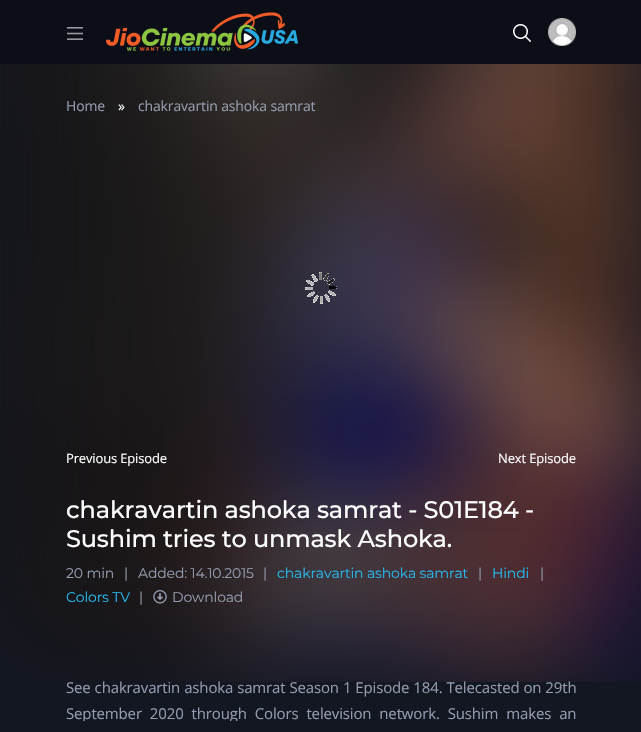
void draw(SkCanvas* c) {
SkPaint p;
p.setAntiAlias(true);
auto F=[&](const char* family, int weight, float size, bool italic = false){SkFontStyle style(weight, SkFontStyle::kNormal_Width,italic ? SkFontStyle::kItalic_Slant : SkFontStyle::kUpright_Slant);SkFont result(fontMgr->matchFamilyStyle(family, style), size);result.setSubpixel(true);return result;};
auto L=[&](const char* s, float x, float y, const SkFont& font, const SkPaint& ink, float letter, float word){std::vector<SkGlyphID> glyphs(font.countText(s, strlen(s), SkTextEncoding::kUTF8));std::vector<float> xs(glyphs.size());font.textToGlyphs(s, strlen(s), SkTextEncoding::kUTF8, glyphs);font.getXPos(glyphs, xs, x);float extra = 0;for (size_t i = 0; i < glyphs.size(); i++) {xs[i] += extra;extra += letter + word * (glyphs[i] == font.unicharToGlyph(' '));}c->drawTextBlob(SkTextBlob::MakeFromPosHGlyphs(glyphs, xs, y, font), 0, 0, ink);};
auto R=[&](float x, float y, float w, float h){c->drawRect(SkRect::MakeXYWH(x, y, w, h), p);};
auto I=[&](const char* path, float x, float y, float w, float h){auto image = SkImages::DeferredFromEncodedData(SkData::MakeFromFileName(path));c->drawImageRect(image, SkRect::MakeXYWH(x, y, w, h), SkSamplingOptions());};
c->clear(0xff131722);
p.setColor(0xff0c0e17);
R(0,0,641,64);
I("1.png",67,27,16,13);
I("2.png",105,12,194,39);
I("3.png",513,24,18,18);
I("4.png",548,18,28,28);
I("5.png",0,64,641,618);
auto f1 = F("Open Sans",400,14);
p.setColor(0xff949cb0);
L("Home",66,111,f1,p,-.15,0);
p.setColor(0xffffffff);
L("»",118,111,f1,p,-.15,0);
p.setColor(0xff949cb0);
L("chakravartin ashoka samrat",138,111,f1,p,-.15,0);
I("6.png",305,272,32,32);
auto f2 = F("Open Sans",400,13);
p.setColor(0xffffffff);
L("Previous Episode",66,463,f2,p,-.15,0);
L("Next Episode",498,463,f2,p,-.15,0);
auto f3 = F("Montserrat",100,24);
L("chakravartin ashoka samrat - S01E184 -",66,518,f3,p,-.15,0);
L("Sushim tries to unmask Ashoka.",66,547,f3,p,-.15,0);
auto f4 = F("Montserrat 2",100,14);
p.setColor(0xff949cb0);
L("20 min",66,578,f4,p,-.15,0);
L("|",540,578,f4,p,-.15,0);
p.setColor(0xff24baef);
L("Colors TV",66,602,f4,p,-.15,0);
p.setColor(0xff949cb0);
L("|",124,578,f4,p,-.15,0);
L("Added: 14.10.2015",138,578,f4,p,-.15,0);
L("|",263,578,f4,p,-.15,0);
p.setColor(0xff24baef);
L("chakravartin ashoka samrat",277,578,f4,p,-.15,0);
p.setColor(0xff949cb0);
L("|",478,578,f4,p,-.15,0);
p.setColor(0xff24baef);
L("Hindi",492,578,f4,p,-.15,0);
p.setColor(0xff949cb0);
L("|",139,602,f4,p,-.15,0);
I("7.png",153,590,14,14);
L("Download",172,602,f4,p,-.15,0);
auto f5 = F("Open Sans",400,15);
L("See chakravartin ashoka samrat Season 1 Episode 184. Telecasted on 29th",66,693,f5,p,-.15,.25);
c->save();
c->clipRect(SkRect::MakeXYWH(66,674,510,47));
L("September 2020 through Colors television network. Sushim makes an",66,719,f5,p,-.15,4.25);
c->restore();
}
